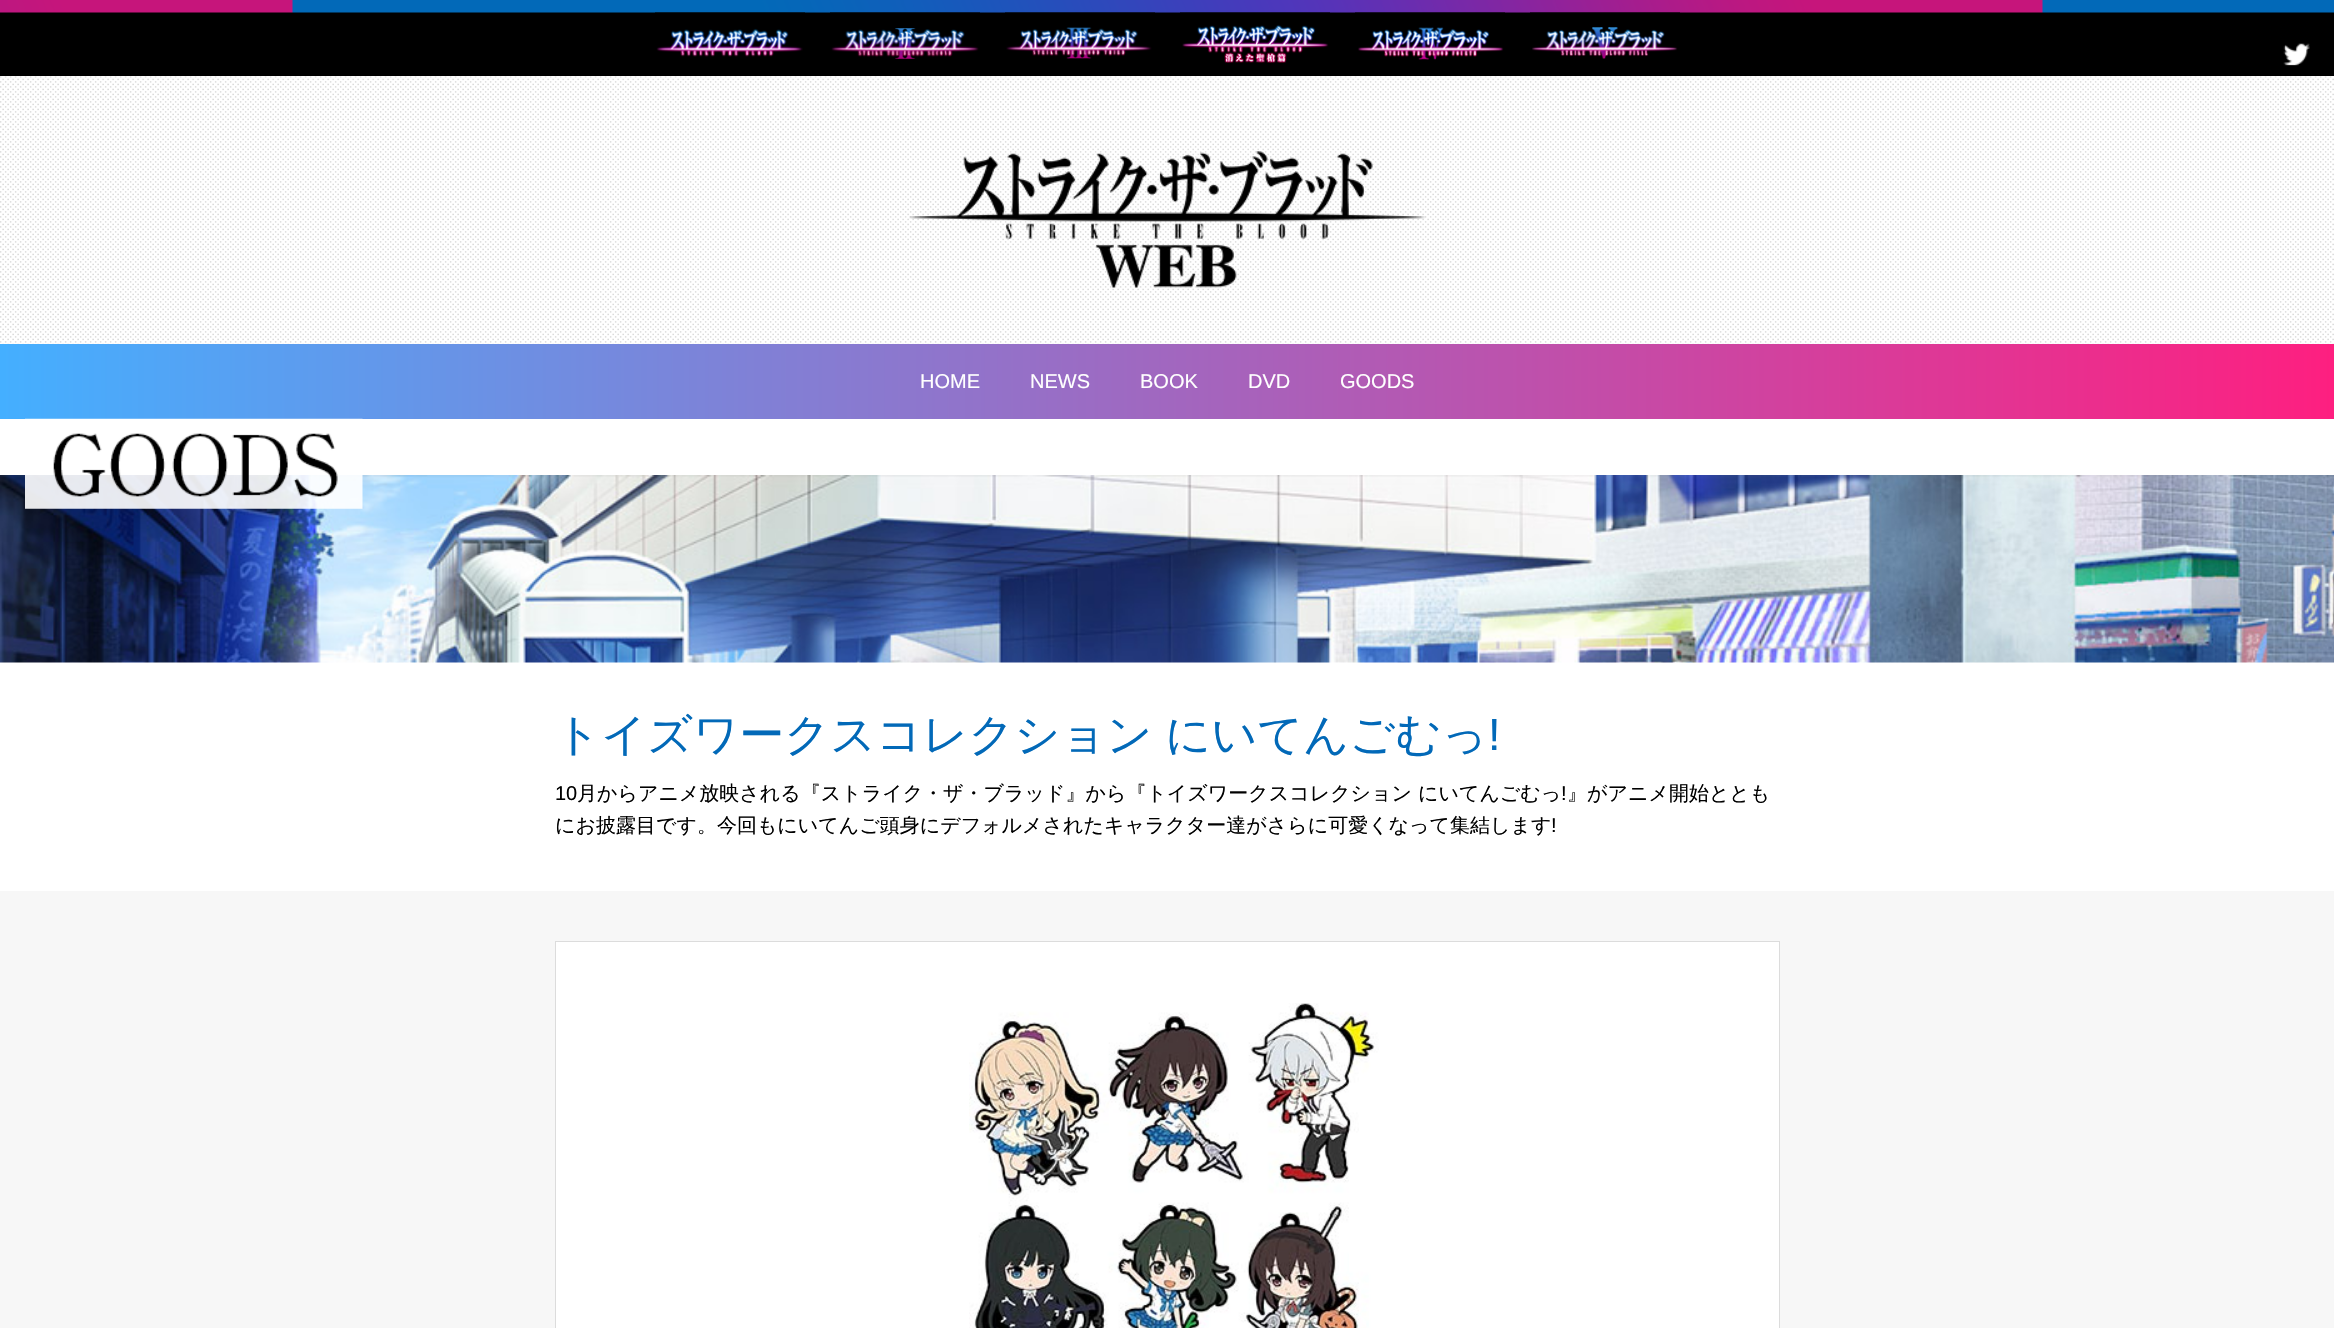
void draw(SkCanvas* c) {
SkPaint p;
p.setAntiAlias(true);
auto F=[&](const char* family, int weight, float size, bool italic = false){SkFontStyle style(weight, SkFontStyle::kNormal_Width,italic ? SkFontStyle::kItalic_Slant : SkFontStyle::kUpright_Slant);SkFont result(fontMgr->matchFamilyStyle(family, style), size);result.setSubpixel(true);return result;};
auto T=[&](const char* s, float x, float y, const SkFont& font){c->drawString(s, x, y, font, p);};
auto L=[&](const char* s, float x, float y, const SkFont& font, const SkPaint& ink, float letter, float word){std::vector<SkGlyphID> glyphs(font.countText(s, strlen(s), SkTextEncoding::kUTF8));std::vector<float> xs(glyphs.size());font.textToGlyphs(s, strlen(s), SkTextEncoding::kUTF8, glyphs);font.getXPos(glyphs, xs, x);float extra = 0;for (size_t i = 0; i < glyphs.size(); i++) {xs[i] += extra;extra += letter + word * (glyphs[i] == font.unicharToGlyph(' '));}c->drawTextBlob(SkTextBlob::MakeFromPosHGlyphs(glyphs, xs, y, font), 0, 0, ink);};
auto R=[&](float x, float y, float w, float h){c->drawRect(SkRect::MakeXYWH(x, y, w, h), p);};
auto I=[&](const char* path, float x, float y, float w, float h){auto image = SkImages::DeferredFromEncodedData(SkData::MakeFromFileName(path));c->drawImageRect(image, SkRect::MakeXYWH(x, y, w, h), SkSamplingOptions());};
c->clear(0xffffffff);
p.setColor(0xff000000);
R(0,12,2334,64);
I("1.png",0,0,2334,13);
I("2.png",655,12,150,45);
I("3.png",830,12,150,47);
I("4.png",1005,12,150,47);
I("5.png",1180,12,150,51);
I("6.png",1355,12,150,48);
I("7.png",1530,12,150,47);
I("8.png",2283,43,27,23);
I("9.png",0,76,2334,268);
I("10.png",909,151,517,137);
{
const SkColor colors[] = {0xff44afff,0xfffe1f80};
const float stops[] = {0,1};
const SkPoint ends[] = {{0,381}, {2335,381}};
p.setShader(SkGradientShader::MakeLinear(ends, colors, stops, 2, SkTileMode::kClamp));
p.setAlpha(255);
}
R(0,344,2334,75);
auto f1 = F("Liberation Sans",400,20);
p.setShader(nullptr);
p.setColor(0xffffffff);
T("HOME",920,388,f1);
T("NEWS",1030,388,f1);
T("BOOK",1140,388,f1);
T("DVD",1248,388,f1);
T("GOODS",1340,388,f1);
I("11.png",0,475,2334,188);
I("12.png",25,418,338,91);
auto f2 = F("WenQuanYi Zen Hei",500,45);
p.setColor(0xff0269b8);
L("トイズワークスコレクション にいてんごむっ",555,750,f2,p,0,-1);
auto f3 = F("Liberation Sans",400,45);
T("!",1488,750,f3);
p.setColor(0xff000000);
T("10",555,800,f1);
auto f4 = F("WenQuanYi Zen Hei",500,20);
T("月からアニメ放映される『ストライク・ザ・ブラッド』から『トイズワークスコレクション にいてんごむっ",577,800,f4);
T("!",1561,800,f1);
T("』がアニメ開始ととも",1567,800,f4);
T("にお披露目です。今回もにいてんご頭身にデフォルメされたキャラクター達がさらに可愛くなって集結します",555,832,f4);
T("!",1551,832,f1);
p.setColor(0xfff7f7f7);
R(0,891,2334,437);
p.setColor(0xffffffff);
c->drawRect(SkRect::MakeXYWH(555.5,941.5,1224,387),p);
p.setStroke(true);
p.setStrokeWidth(1);
p.setColor(0xffdcdcdc);
c->drawRect(SkRect::MakeXYWH(555.5,941.5,1224,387),p);
I("13.png",969,1003,410,325);
}
